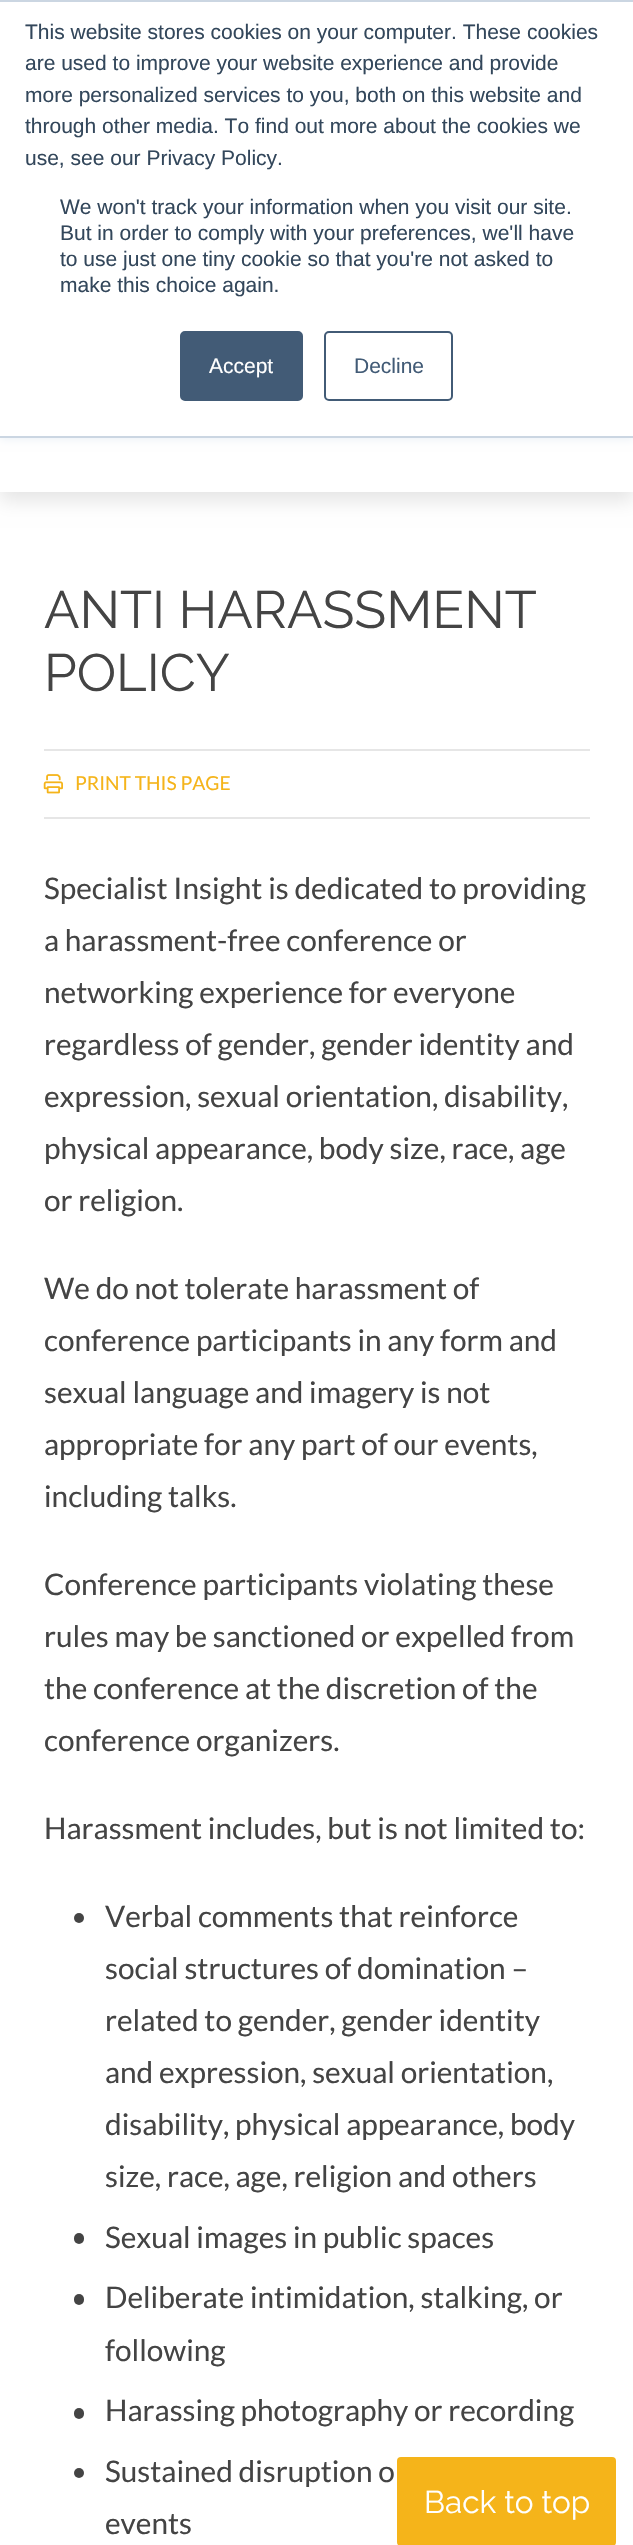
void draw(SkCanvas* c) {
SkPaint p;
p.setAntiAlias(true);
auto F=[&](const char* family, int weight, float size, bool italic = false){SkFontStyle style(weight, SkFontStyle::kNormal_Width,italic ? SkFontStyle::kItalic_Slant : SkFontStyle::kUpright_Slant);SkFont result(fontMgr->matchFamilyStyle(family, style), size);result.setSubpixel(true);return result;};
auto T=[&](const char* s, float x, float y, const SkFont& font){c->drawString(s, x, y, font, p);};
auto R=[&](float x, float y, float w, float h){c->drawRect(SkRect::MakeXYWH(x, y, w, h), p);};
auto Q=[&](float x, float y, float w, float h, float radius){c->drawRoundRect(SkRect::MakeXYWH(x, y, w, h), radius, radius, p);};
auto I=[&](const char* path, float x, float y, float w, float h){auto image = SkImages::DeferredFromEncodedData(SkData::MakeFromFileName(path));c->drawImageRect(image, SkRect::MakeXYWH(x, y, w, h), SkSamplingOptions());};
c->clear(0xffffffff);
p.setColor(0x1a000000);
p.setMaskFilter(SkMaskFilter::MakeBlur(kNormal_SkBlurStyle, 9));
c->drawRect(SkRect::MakeXYWH(0,79,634,422),p);
p.setMaskFilter(nullptr);
p.setColor(0xffffffff);
R(0,438,633,54);
p.setColor(0xffeaf0f6);
p.setMaskFilter(SkMaskFilter::MakeBlur(kNormal_SkBlurStyle, 4.5));
c->drawRect(SkRect::MakeXYWH(0,2,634,437),p);
p.setMaskFilter(nullptr);
p.setColor(0xffffffff);
R(0,2,633,434);
p.setColor(0xffcbd6e2);
R(0,0,633,2);
R(0,436,633,2);
auto f1 = F("Liberation Sans",400,21);
p.setColor(0xff33475b);
T("This website stores cookies on your computer. These cookies",25,39,f1);
T("are used to improve your website experience and provide",25,70,f1);
T("more personalized services to you, both on this website and",25,102,f1);
T("through other media. To find out more about the cookies we",25,133,f1);
T("use, see our Privacy Policy.",25,165,f1);
T("We won't track your information when you visit our site.",60,214,f1);
T("But in order to comply with your preferences, we'll have",60,240,f1);
T("to use just one tiny cookie so that you're not asked to",60,266,f1);
T("make this choice again.",60,292,f1);
p.setColor(0xff425b76);
c->drawRoundRect(SkRect::MakeXYWH(181,332,121,68),4,4,p);
p.setStroke(true);
p.setStrokeWidth(2);
c->drawRoundRect(SkRect::MakeXYWH(181,332,121,68),4,4,p);
p.setStroke(false);
p.setColor(0xffffffff);
T("Accept",209,373,f1);
p.setStroke(true);
p.setColor(0xff425b76);
c->drawRoundRect(SkRect::MakeXYWH(325,332,127,68),4,4,p);
p.setStroke(false);
T("Decline",354,373,f1);
auto f2 = F("Raleway",400,52.5);
p.setColor(0xff444444);
T("ANTI HARASSMENT",44,628,f2);
T("POLICY",44,691,f2);
p.setColor(0xffe6e6e6);
R(44,749,546,2);
R(44,817,546,2);
I("1.png",43,774,20,20);
auto f3 = F("Lato",400,19.25);
p.setColor(0xfff5b41a);
T("PRINT THIS PAGE",75,790,f3);
auto f4 = F("Lato",400,29.75);
p.setColor(0xff444444);
T("Specialist Insight is dedicated to providing",44,899,f4);
T("a harassment-free conference or",44,951,f4);
T("networking experience for everyone",44,1003,f4);
T("regardless of gender, gender identity and",44,1055,f4);
T("expression, sexual orientation, disability,",44,1107,f4);
T("physical appearance, body size, race, age",44,1159,f4);
T("or religion.",44,1211,f4);
T("We do not tolerate harassment of",44,1299,f4);
T("conference participants in any form and",44,1351,f4);
T("sexual language and imagery is not",44,1403,f4);
T("appropriate for any part of our events,",44,1455,f4);
T("including talks.",44,1507,f4);
T("Conference participants violating these",44,1595,f4);
T("rules may be sanctioned or expelled from",44,1647,f4);
T("the conference at the discretion of the",44,1699,f4);
T("conference organizers.",44,1751,f4);
T("Harassment includes, but is not limited to:",44,1839,f4);
c->drawCircle(79,1918,5,p);
T("Verbal comments that reinforce",105,1927,f4);
T("social structures of domination –",105,1979,f4);
T("related to gender, gender identity",105,2031,f4);
T("and expression, sexual orientation,",105,2083,f4);
T("disability, physical appearance, body",105,2135,f4);
T("size, race, age, religion and others",105,2187,f4);
Q(74,2233,10,11,5);
T("Sexual images in public spaces",105,2248,f4);
Q(74,2294,10,11,5);
T("Deliberate intimidation, stalking, or",105,2308,f4);
T("following",105,2361,f4);
Q(74,2408,10,11,5);
T("Harassing photography or recording",105,2421,f4);
c->drawCircle(79,2473,5,p);
T("Sustained disruption o",105,2482,f4);
T("events",105,2534,f4);
p.setColor(0xfff5b41a);
Q(397,2457,219,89,4);
auto f5 = F("Raleway",400,31.5);
p.setColor(0xffffffff);
T("Back to top",424,2513,f5);
}
